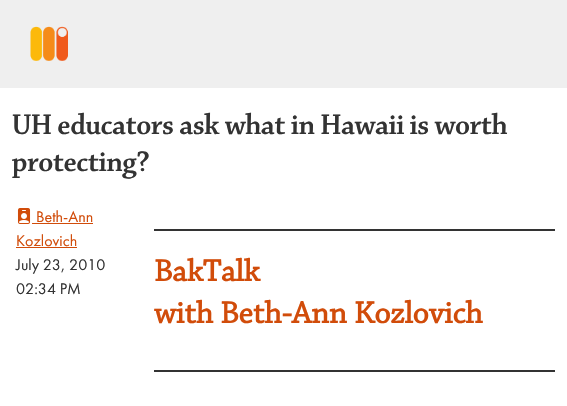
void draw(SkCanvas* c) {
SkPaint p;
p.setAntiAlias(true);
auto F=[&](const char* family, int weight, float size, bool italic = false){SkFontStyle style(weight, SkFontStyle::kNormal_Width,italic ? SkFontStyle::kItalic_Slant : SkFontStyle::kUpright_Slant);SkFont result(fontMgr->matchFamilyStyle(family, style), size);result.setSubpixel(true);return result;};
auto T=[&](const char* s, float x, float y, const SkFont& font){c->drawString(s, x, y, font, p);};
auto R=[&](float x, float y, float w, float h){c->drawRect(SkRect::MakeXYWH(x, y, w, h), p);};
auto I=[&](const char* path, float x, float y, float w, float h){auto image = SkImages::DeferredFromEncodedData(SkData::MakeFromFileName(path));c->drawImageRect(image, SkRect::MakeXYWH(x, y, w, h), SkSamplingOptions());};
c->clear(0xffffffff);
p.setColor(0xffefefef);
R(0,0,567,88);
I("1.png",30,26,38,35);
auto f1 = F("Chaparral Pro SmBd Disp",600,30.5);
p.setColor(0xff333333);
T("UH educators ask what in Hawaii is worth",12,134,f1);
T("protecting?",12,171,f1);
I("2.png",17,208,14,16);
auto f2 = F("Futura PT",400,16);
p.setColor(0xffd14c0a);
T("Beth-Ann",36,222,f2);
R(32,223,61,1);
T("Kozlovich",16,246,f2);
R(16,247,61,1);
p.setColor(0xff333333);
T("July 23, 2010",16,270,f2);
T("02:34 PM",16,294,f2);
R(154,229,401,2);
R(154,370,401,2);
auto f3 = F("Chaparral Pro",700,32);
p.setColor(0xffd14c0a);
T("BakTalk",154,281,f3);
T("with Beth-Ann Kozlovich",154,323,f3);
}
